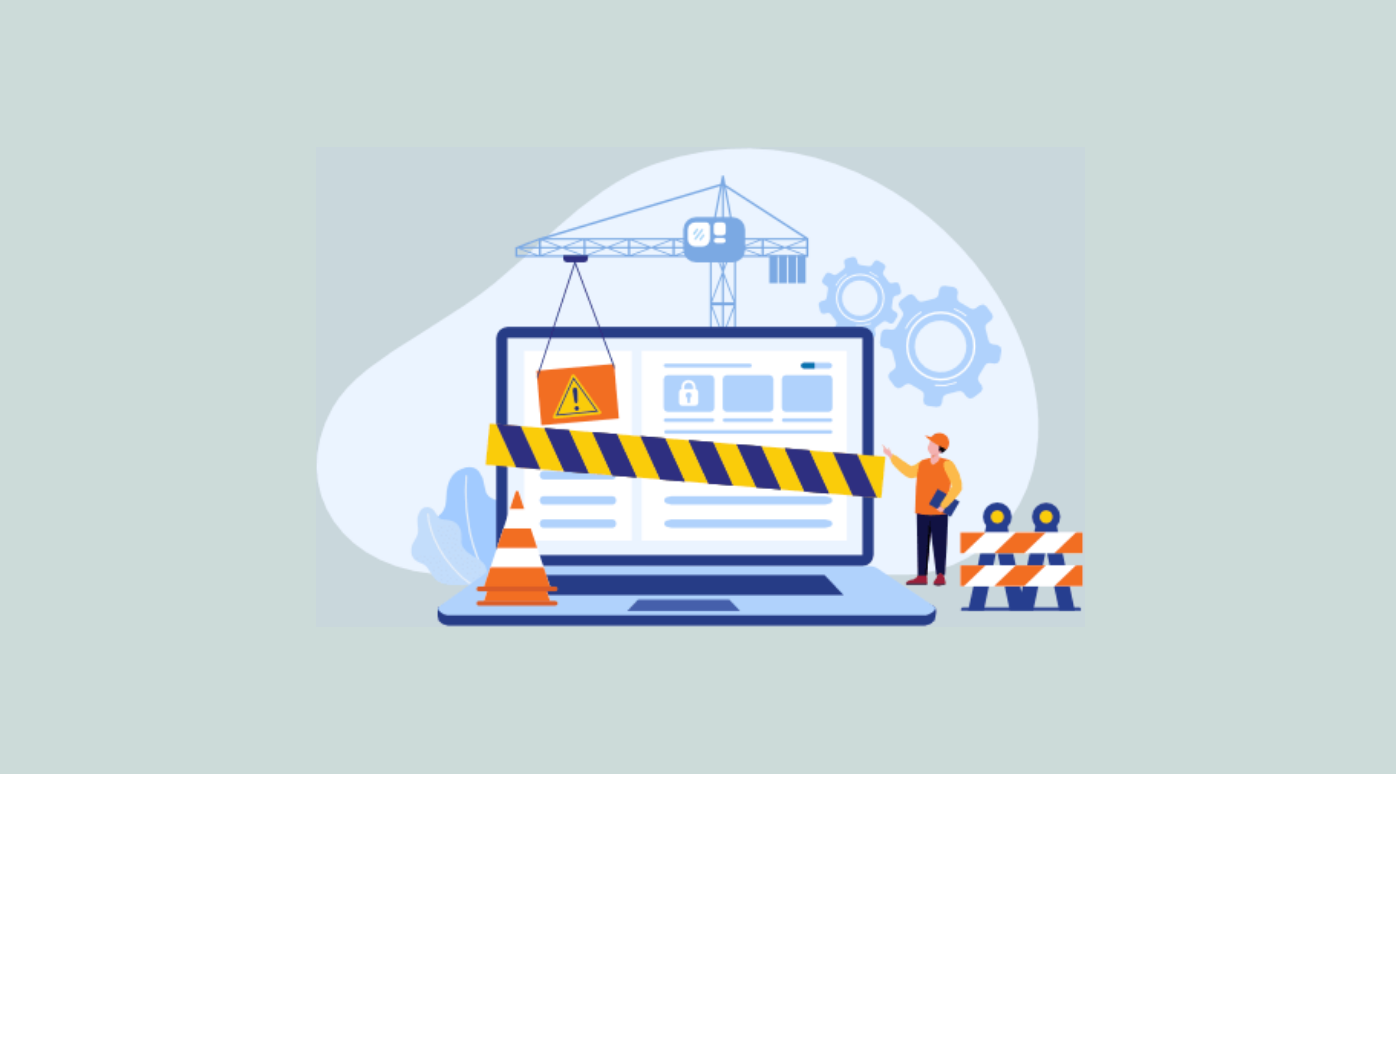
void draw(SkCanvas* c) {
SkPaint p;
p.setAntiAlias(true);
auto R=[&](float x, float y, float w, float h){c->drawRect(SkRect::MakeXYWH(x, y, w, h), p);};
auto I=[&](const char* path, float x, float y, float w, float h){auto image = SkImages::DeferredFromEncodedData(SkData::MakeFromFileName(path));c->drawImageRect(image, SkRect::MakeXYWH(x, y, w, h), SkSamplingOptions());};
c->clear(0xffffffff);
p.setColor(0xffccdbd9);
R(0,0,1396,774);
I("1.png",316,147,769,480);
}
